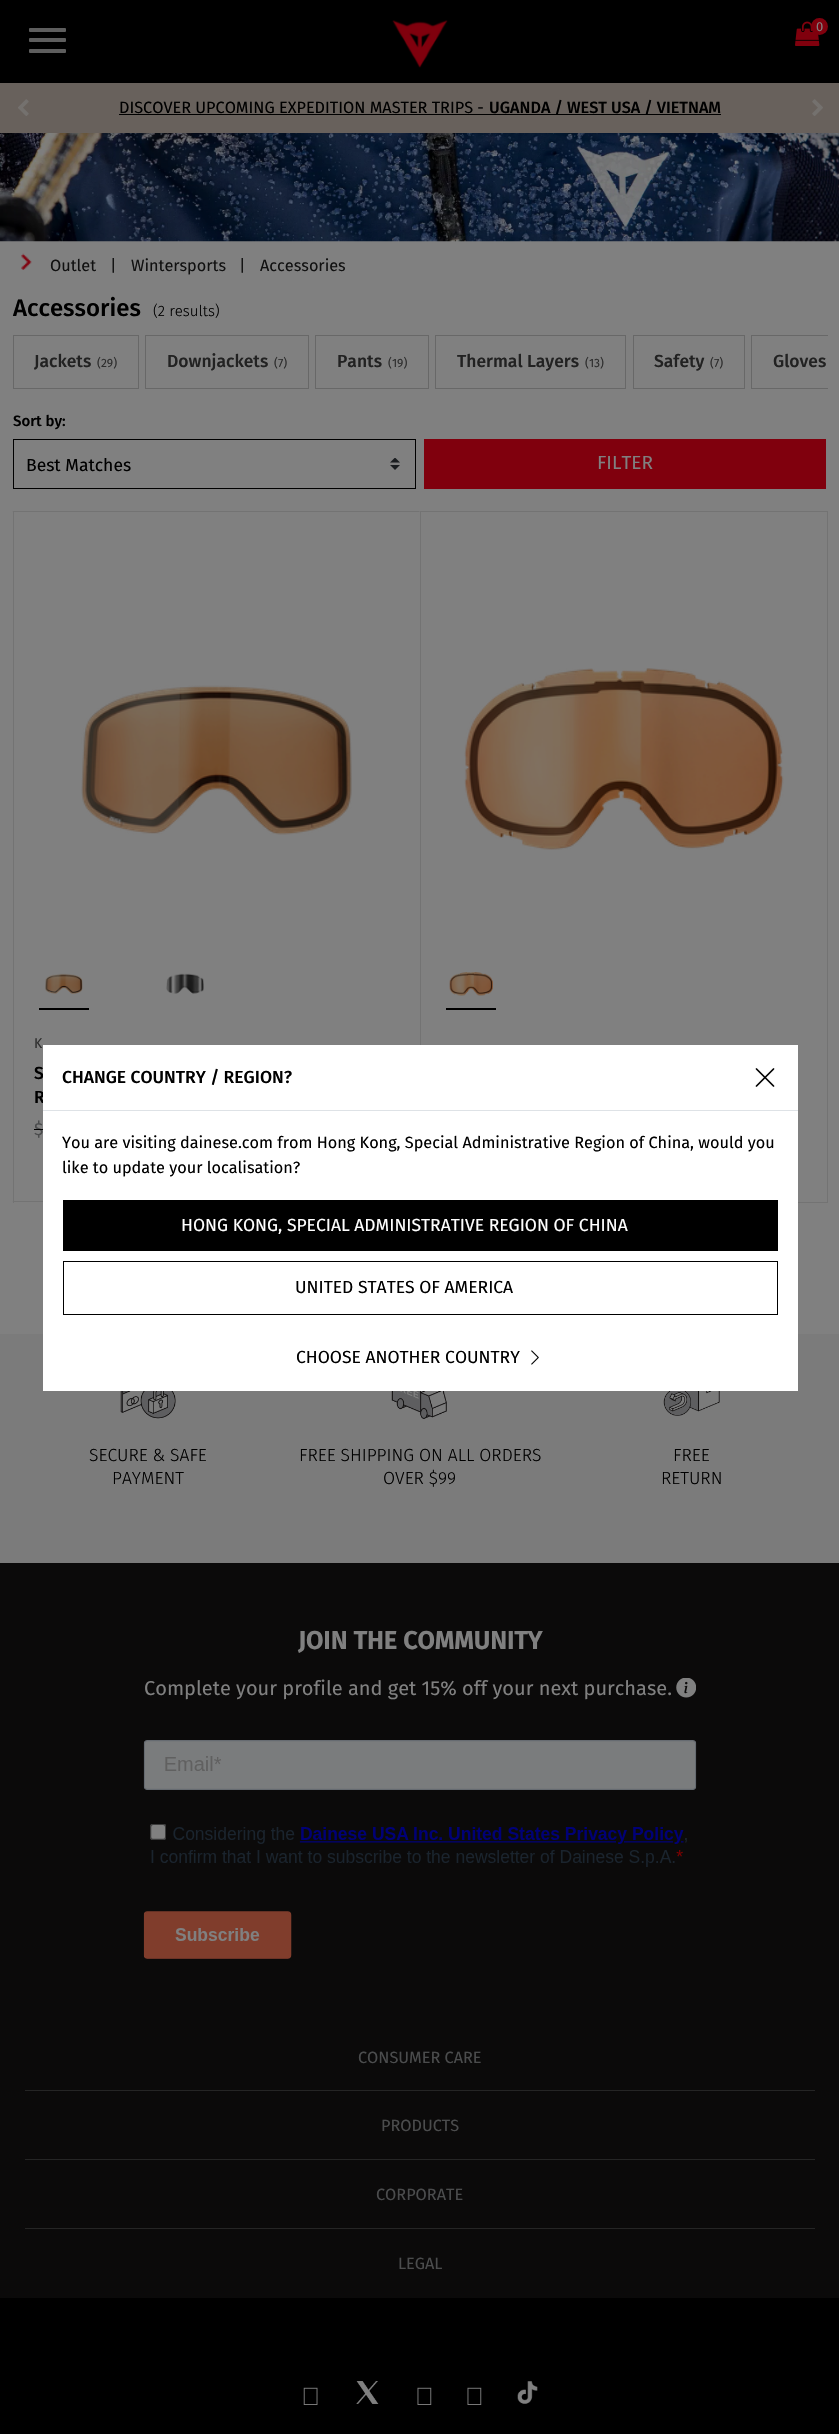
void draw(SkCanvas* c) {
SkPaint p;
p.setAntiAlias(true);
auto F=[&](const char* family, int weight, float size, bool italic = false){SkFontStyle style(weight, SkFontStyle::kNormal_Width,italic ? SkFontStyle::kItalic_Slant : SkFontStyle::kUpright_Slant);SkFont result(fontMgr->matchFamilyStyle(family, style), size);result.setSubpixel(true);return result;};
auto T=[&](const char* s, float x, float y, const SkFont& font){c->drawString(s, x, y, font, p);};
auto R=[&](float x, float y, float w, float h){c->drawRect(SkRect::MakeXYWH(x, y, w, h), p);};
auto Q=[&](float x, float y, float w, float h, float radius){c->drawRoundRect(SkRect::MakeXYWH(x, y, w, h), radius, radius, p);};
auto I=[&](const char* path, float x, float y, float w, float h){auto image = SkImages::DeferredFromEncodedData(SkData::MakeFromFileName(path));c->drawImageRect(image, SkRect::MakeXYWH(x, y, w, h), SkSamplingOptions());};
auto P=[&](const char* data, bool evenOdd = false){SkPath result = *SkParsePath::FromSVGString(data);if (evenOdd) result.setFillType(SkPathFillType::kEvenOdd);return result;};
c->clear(0xff808080);
p.setColor(0xff000000);
R(0,0,839,83);
I("1.png",392,20,56,48);
I("2.png",795,21,25,25);
p.setColor(0xff80000d);
c->drawCircle(819.5,26.5,8.5,p);
auto f1 = F("Fira Sans",400,13);
p.setColor(0xff808080);
T("0",816,31,f1);
p.setColor(0xff5e5e5e);
Q(29,28,37,4,1);
Q(29,38,37,4,1);
Q(29,49,37,4,1);
p.setColor(0xff68615c);
R(0,83,839,50);
I("3.png",18,99,11,17);
auto f2 = F("Fira Sans",400,16.25);
p.setColor(0xff000000);
T("DISCOVER UPCOMING EXPEDITION MASTER TRIPS -",119,113,f2);
R(119,114,602,1);
auto f3 = F("Fira Sans",500,16.25);
T("UGANDA / WEST USA / VIETNAM",489,113,f3);
I("4.png",812,99,11,17);
I("5.png",0,133,839,109);
I("6.png",21,253,11,17);
p.setColor(0xff111111);
T("Outlet",50,271,f2);
T("|",110,271,f2);
T("Wintersports",131,271,f2);
T("|",239,271,f2);
T("Accessories",260,271,f2);
auto f4 = F("Fira Sans",500,24);
p.setColor(0xff000000);
T("Accessories",13,316,f4);
auto f5 = F("Fira Sans",300,15);
T("(2 results)",153,316,f5);
p.setStroke(true);
p.setStrokeWidth(1);
p.setColor(0xff686868);
c->drawRect(SkRect::MakeXYWH(13.5,335.5,125,53),p);
auto f6 = F("Fira Sans",500,17.5);
p.setStroke(false);
p.setColor(0xff222222);
T("Jackets",34,367,f6);
auto f7 = F("Fira Sans",400,12);
p.setColor(0xff2e2e2e);
T("(29)",97,367,f7);
p.setStroke(true);
p.setColor(0xff686868);
c->drawRect(SkRect::MakeXYWH(145.5,335.5,163,53),p);
p.setStroke(false);
p.setColor(0xff222222);
T("Downjackets",167,367,f6);
p.setColor(0xff2e2e2e);
T("(7)",274,367,f7);
p.setStroke(true);
p.setColor(0xff686868);
c->drawRect(SkRect::MakeXYWH(315.5,335.5,113,53),p);
p.setStroke(false);
p.setColor(0xff222222);
T("Pants",337,367,f6);
p.setColor(0xff2e2e2e);
T("(19)",388,367,f7);
p.setStroke(true);
p.setColor(0xff686868);
c->drawRect(SkRect::MakeXYWH(435.5,335.5,190,53),p);
p.setStroke(false);
p.setColor(0xff222222);
T("Thermal Layers",457,367,f6);
p.setColor(0xff2e2e2e);
T("(13)",585,367,f7);
p.setStroke(true);
p.setColor(0xff686868);
c->drawRect(SkRect::MakeXYWH(633.5,335.5,111,53),p);
p.setStroke(false);
p.setColor(0xff222222);
T("Safety",654,367,f6);
p.setColor(0xff2e2e2e);
T("(7)",710,367,f7);
c->save();
c->clipRect(SkRect::MakeXYWH(13,335,815,54));
p.setStroke(true);
p.setColor(0xff686868);
c->drawRect(SkRect::MakeXYWH(751.5,335.5,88,53),p);
c->restore();
p.setStroke(false);
p.setColor(0xff222222);
T("Gloves",773,367,f6);
auto f8 = F("Fira Sans",500,15);
p.setColor(0xff000000);
T("Sort by:",13,426,f8);
I("7.png",390,458,10,12);
p.setStroke(true);
c->drawRect(SkRect::MakeXYWH(13.5,439.5,402,49),p);
auto f9 = F("Fira Sans",400,17.5);
p.setStroke(false);
T("Best Matches",26,471,f9);
p.setColor(0xff80000d);
R(424,439,402,50);
auto f10 = F("Fira Sans",400,19);
p.setColor(0xff808080);
T("FILTER",597,469,f10);
p.setColor(0xff737373);
c->drawPath(P("M12 511h408l-1 1h-405z"),p);
c->drawPath(P("M420 1202h-408l2-1h405z"),p);
R(13,511,1,692);
I("8.png",81,685,271,150);
p.setColor(0xff000000);
R(39,1008,50,2);
I("9.png",45,973,38,21);
I("10.png",166,973,38,21);
auto f11 = F("Fira Sans",400,14);
p.setColor(0xff2e2e2e);
T("K",34,1048,f11);
p.setColor(0xff000000);
T("S",34,1079,f6);
T("R",34,1103,f6);
p.setColor(0xff4b4c4d);
T("$",34,1135,f9);
p.setColor(0xff000000);
R(34,1129,9,1);
p.setStroke(true);
p.setColor(0xff737373);
c->drawRect(SkRect::MakeXYWH(420.5,511.5,407,691),p);
I("11.png",464,668,320,182);
p.setStroke(false);
p.setColor(0xff000000);
R(446,1008,50,2);
I("12.png",449,972,44,24);
R(0,2298,839,136);
p.setColor(0xff7b7b7b);
R(0,1334,839,229);
I("13.png",120,1391,56,28);
auto f12 = F("Fira Sans",300,17.5);
p.setColor(0xff000000);
T("SECURE & SAFE",89,1461,f12);
T("PAYMENT",112,1484,f12);
I("14.png",391,1391,56,28);
T("FREE SHIPPING ON ALL ORDERS",299,1461,f12);
T("OVER $99",383,1484,f12);
I("15.png",663,1391,57,25);
T("FREE",673,1461,f12);
T("RETURN",661,1484,f12);
p.setColor(0xff0b0a0a);
R(0,1563,839,735);
auto f13 = F("Fira Sans",700,25);
p.setColor(0xff808080);
T("JOIN THE COMMUNITY",298,1649,f13);
auto f14 = F("Fira Sans",400,20);
T("Complete your profile and get 15% off your next purchase.",144,1695,f14);
I("16.png",676,1678,20,20);
I("17.png",143,1740,554,219);
p.setColor(0xff252525);
R(25,2090,790,1);
p.setColor(0xff4b4c4d);
T("CONSUMER CARE",358,2063,f2);
p.setColor(0xff252525);
R(25,2159,790,1);
p.setColor(0xff4b4c4d);
T("PRODUCTS",381,2131,f2);
p.setColor(0xff252525);
R(25,2228,790,1);
p.setColor(0xff4b4c4d);
T("CORPORATE",376,2200,f2);
T("LEGAL",398,2269,f2);
I("18.png",303,2387,15,18);
I("19.png",356,2381,23,23);
I("20.png",417,2387,15,18);
I("20.png",467,2387,15,18);
I("21.png",517,2381,21,23);
p.setColor(0xffffffff);
R(43,1045,755,346);
p.setColor(0xffdee2e6);
R(43,1110,755,1);
p.setColor(0xff000000);
T("CHANGE COUNTRY / REGION?",62,1083,f6);
I("22.png",755,1068,20,19);
T("You are visiting dainese.com from Hong Kong, Special Administrative Region of China, would you",62,1148,f2);
T("like to update your localisation?",62,1173,f2);
R(63,1200,715,51);
p.setColor(0xffffffff);
T("HONG KONG, SPECIAL ADMINISTRATIVE REGION OF CHINA",181,1231,f9);
p.setStroke(true);
p.setColor(0xff000000);
c->drawRect(SkRect::MakeXYWH(63.5,1261.5,714,53),p);
p.setStroke(false);
T("UNITED STATES OF AMERICA",295,1293,f9);
T("CHOOSE ANOTHER COUNTRY",296,1363,f9);
I("23.png",531,1350,8,15);
}
